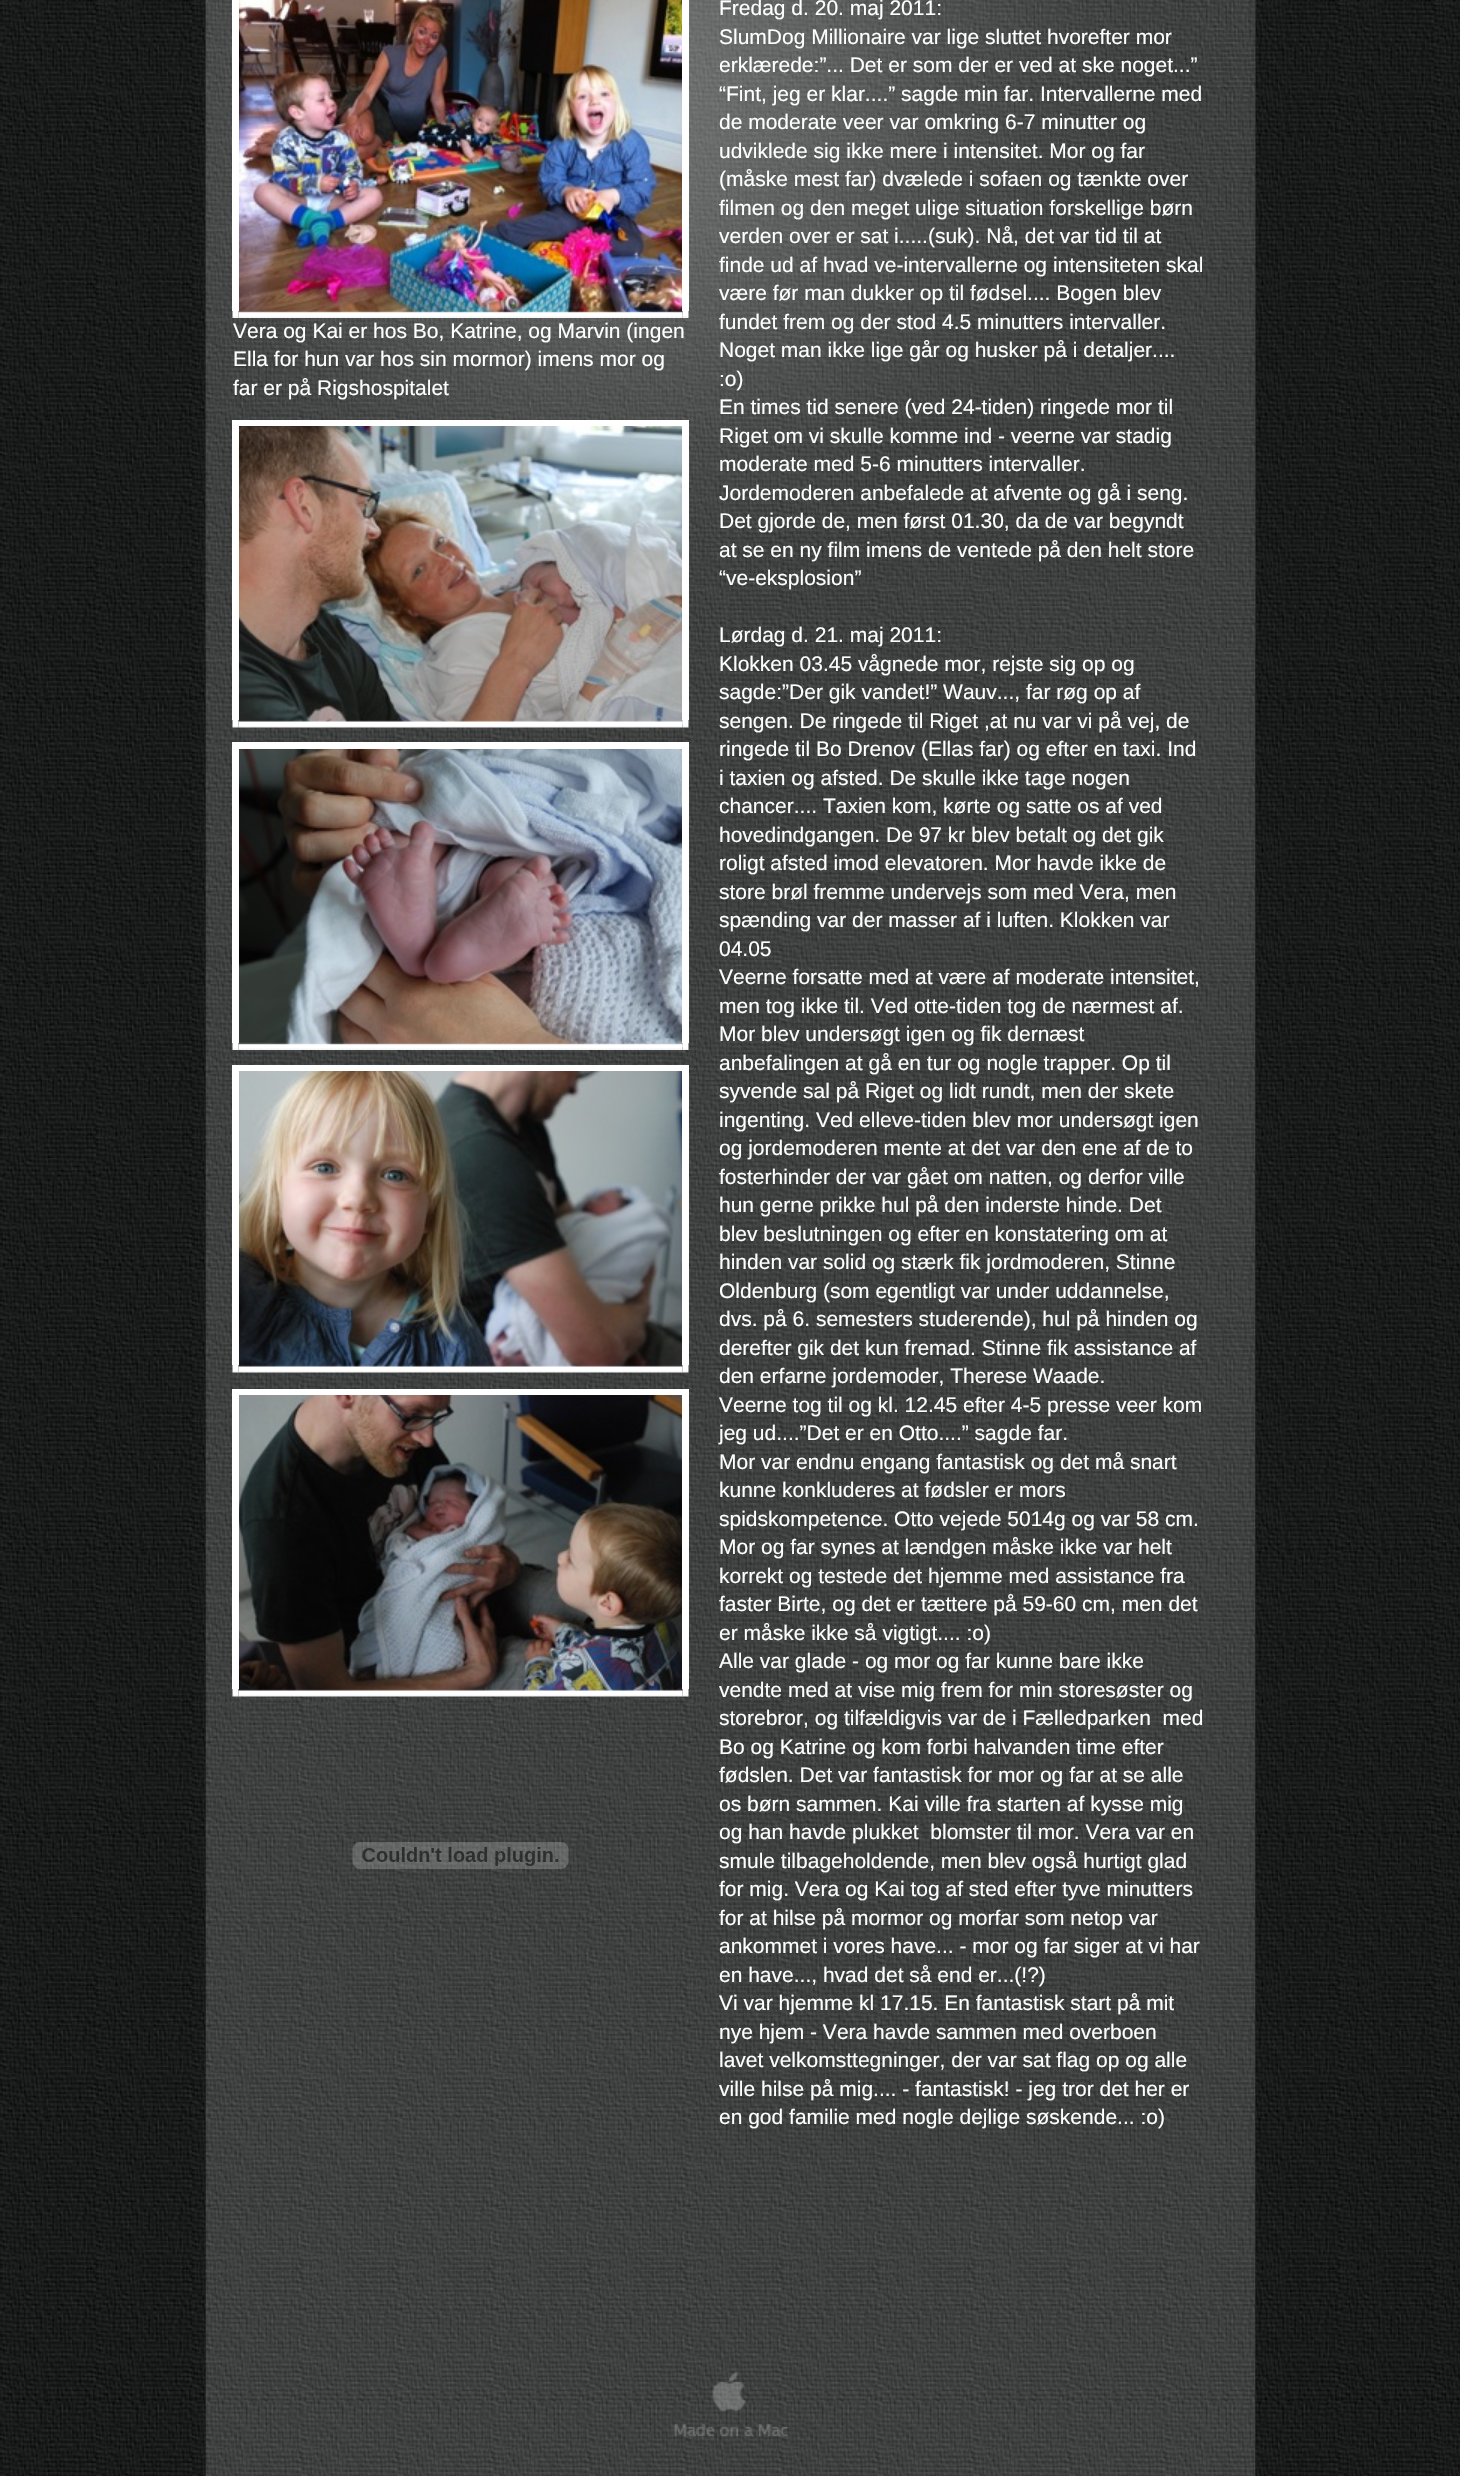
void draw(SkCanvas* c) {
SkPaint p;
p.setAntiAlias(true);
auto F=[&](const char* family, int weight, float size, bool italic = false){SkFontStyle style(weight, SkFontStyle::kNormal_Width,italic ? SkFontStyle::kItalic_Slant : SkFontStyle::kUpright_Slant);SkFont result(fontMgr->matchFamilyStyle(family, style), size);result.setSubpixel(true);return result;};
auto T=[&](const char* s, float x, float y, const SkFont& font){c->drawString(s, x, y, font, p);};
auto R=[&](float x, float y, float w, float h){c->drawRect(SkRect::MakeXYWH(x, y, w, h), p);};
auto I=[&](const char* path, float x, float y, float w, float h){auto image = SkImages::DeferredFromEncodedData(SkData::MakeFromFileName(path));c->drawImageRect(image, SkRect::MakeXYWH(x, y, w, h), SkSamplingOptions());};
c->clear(0xffffffff);
I("1.png",0,0,1460,2476);
I("2.png",205,0,1051,2476);
I("3.png",205,0,1051,648);
I("4.png",238,0,445,315);
p.setColor(0xffffffff);
R(232,0,7,311);
R(682,0,7,311);
I("7.png",682,311,7,7);
I("6.png",238,310,445,8);
I("5.png",232,311,7,7);
auto f1 = F("Liberation Sans",400,21);
T("Fredag d. 20. maj 2011:",719,15,f1);
T("SlumDog Millionaire var lige sluttet hvorefter mor",719,44,f1);
T("erklærede:”... Det er som der er ved at ske noget...”",719,72,f1);
T("“Fint, jeg er klar....” sagde min far. Intervallerne med",719,101,f1);
T("de moderate veer var omkring 6-7 minutter og",719,129,f1);
T("udviklede sig ikke mere i intensitet. Mor og far",719,158,f1);
T("(måske mest far) dvælede i sofaen og tænkte over",719,186,f1);
T("filmen og den meget ulige situation forskellige børn",719,215,f1);
T("verden over er sat i.....(suk). Nå, det var tid til at",719,243,f1);
T("finde ud af hvad ve-intervallerne og intensiteten skal",719,272,f1);
T("være før man dukker op til fødsel.... Bogen blev",719,300,f1);
T("fundet frem og der stod 4.5 minutters intervaller.",719,329,f1);
T("Noget man ikke lige går og husker på i detaljer....",719,357,f1);
T(":o)",719,386,f1);
T("En times tid senere (ved 24-tiden) ringede mor til",719,414,f1);
T("Riget om vi skulle komme ind - veerne var stadig",719,443,f1);
T("moderate med 5-6 minutters intervaller.",719,471,f1);
T("Jordemoderen anbefalede at afvente og gå i seng.",719,500,f1);
T("Det gjorde de, men først 01.30, da de var begyndt",719,528,f1);
T("at se en ny film imens de ventede på den helt store",719,557,f1);
T("“ve-eksplosion”",719,585,f1);
T("Lørdag d. 21. maj 2011:",719,642,f1);
T("Klokken 03.45 vågnede mor, rejste sig op og",719,671,f1);
T("sagde:”Der gik vandet!” Wauv..., far røg op af",719,699,f1);
T("sengen. De ringede til Riget ,at nu var vi på vej, de",719,728,f1);
T("ringede til Bo Drenov (Ellas far) og efter en taxi. Ind",719,756,f1);
T("i taxien og afsted. De skulle ikke tage nogen",719,785,f1);
T("chancer.... Taxien kom, kørte og satte os af ved",719,813,f1);
T("hovedindgangen. De 97 kr blev betalt og det gik",719,842,f1);
T("roligt afsted imod elevatoren. Mor havde ikke de",719,870,f1);
T("store brøl fremme undervejs som med Vera, men",719,899,f1);
T("spænding var der masser af i luften. Klokken var",719,927,f1);
T("04.05",719,956,f1);
T("Veerne forsatte med at være af moderate intensitet,",719,984,f1);
T("men tog ikke til. Ved otte-tiden tog de nærmest af.",719,1013,f1);
T("Mor blev undersøgt igen og fik dernæst",719,1041,f1);
T("anbefalingen at gå en tur og nogle trapper. Op til",719,1070,f1);
T("syvende sal på Riget og lidt rundt, men der skete",719,1098,f1);
T("ingenting. Ved elleve-tiden blev mor undersøgt igen",719,1127,f1);
T("og jordemoderen mente at det var den ene af de to",719,1155,f1);
T("fosterhinder der var gået om natten, og derfor ville",719,1184,f1);
T("hun gerne prikke hul på den inderste hinde. Det",719,1212,f1);
T("blev beslutningen og efter en konstatering om at",719,1241,f1);
T("hinden var solid og stærk fik jordmoderen, Stinne",719,1269,f1);
T("Oldenburg (som egentligt var under uddannelse,",719,1298,f1);
T("dvs. på 6. semesters studerende), hul på hinden og",719,1326,f1);
T("derefter gik det kun fremad. Stinne fik assistance af",719,1355,f1);
T("den erfarne jordemoder, Therese Waade.",719,1383,f1);
T("Veerne tog til og kl. 12.45 efter 4-5 presse veer kom",719,1412,f1);
T("jeg ud....”Det er en Otto....” sagde far.",719,1440,f1);
T("Mor var endnu engang fantastisk og det må snart",719,1469,f1);
T("kunne konkluderes at fødsler er mors",719,1497,f1);
T("spidskompetence. Otto vejede 5014g og var 58 cm.",719,1526,f1);
T("Mor og far synes at lændgen måske ikke var helt",719,1554,f1);
T("korrekt og testede det hjemme med assistance fra",719,1583,f1);
T("faster Birte, og det er tættere på 59-60 cm, men det",719,1611,f1);
T("er måske ikke så vigtigt.... :o)",719,1640,f1);
T("Alle var glade - og mor og far kunne bare ikke",719,1668,f1);
T("vendte med at vise mig frem for min storesøster og",719,1697,f1);
T("storebror, og tilfældigvis var de i Fælledparken  med",719,1725,f1);
T("Bo og Katrine og kom forbi halvanden time efter",719,1754,f1);
T("fødslen. Det var fantastisk for mor og far at se alle",719,1782,f1);
T("os børn sammen. Kai ville fra starten af kysse mig",719,1811,f1);
T("og han havde plukket  blomster til mor. Vera var en",719,1839,f1);
T("smule tilbageholdende, men blev også hurtigt glad",719,1868,f1);
T("for mig. Vera og Kai tog af sted efter tyve minutters",719,1896,f1);
T("for at hilse på mormor og morfar som netop var",719,1925,f1);
T("ankommet i vores have... - mor og far siger at vi har",719,1953,f1);
T("en have..., hvad det så end er...(!?)",719,1982,f1);
T("Vi var hjemme kl 17.15. En fantastisk start på mit",719,2010,f1);
T("nye hjem - Vera havde sammen med overboen",719,2039,f1);
T("lavet velkomsttegninger, der var sat flag op og alle",719,2067,f1);
T("ville hilse på mig.... - fantastisk! - jeg tror det her er",719,2096,f1);
T("en god familie med nogle dejlige søskende... :o)",719,2124,f1);
T("Vera og Kai er hos Bo, Katrine, og Marvin (ingen",233,338,f1);
T("Ella for hun var hos sin mormor) imens mor og",233,366,f1);
T("far er på Rigshospitalet",233,395,f1);
I("8.png",238,426,445,299);
R(232,420,7,300);
R(239,420,450,6);
R(682,426,7,294);
I("11.png",682,720,7,8);
I("10.png",238,720,445,8);
I("9.png",232,720,7,8);
I("12.png",238,749,445,298);
R(232,742,7,301);
R(239,742,450,7);
R(682,749,7,294);
I("15.png",682,1043,7,7);
I("14.png",238,1042,445,8);
I("13.png",232,1043,7,7);
I("16.png",238,1071,445,299);
R(232,1065,7,300);
R(239,1065,450,6);
R(682,1071,7,294);
I("19.png",682,1365,7,8);
I("18.png",238,1365,445,8);
I("17.png",232,1365,7,8);
I("20.png",238,1395,445,299);
R(232,1389,7,300);
R(239,1389,450,6);
R(682,1395,7,294);
I("23.png",682,1689,7,8);
I("22.png",238,1689,445,8);
I("21.png",232,1689,7,8);
I("24.png",352,1842,217,27);
I("25.png",673,2371,116,66);
}
